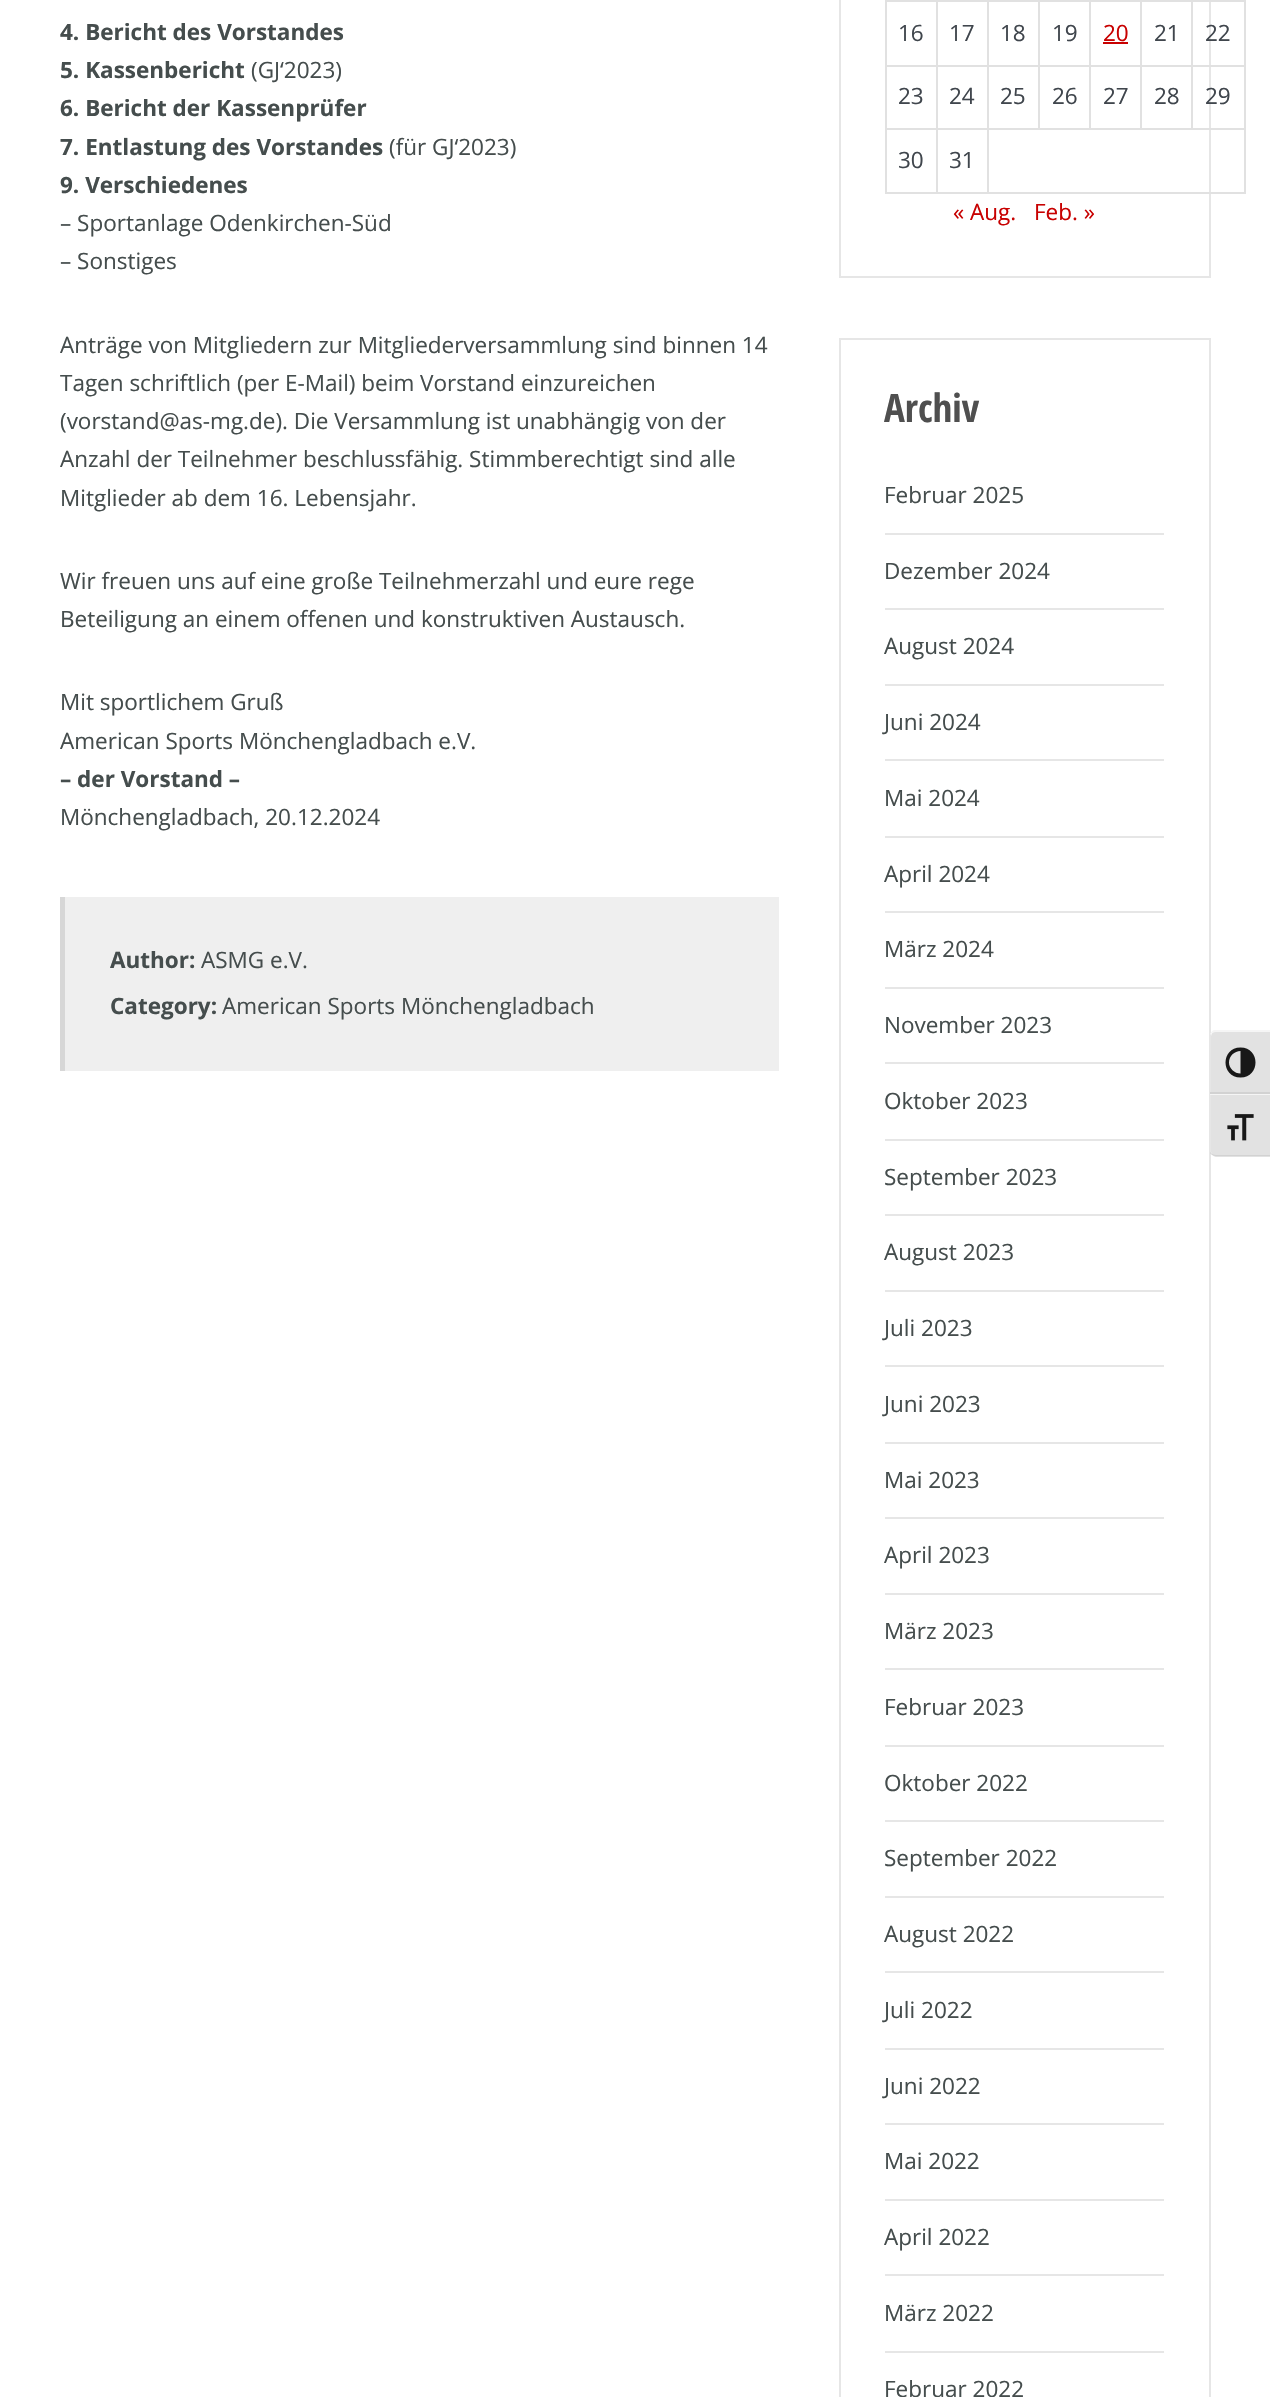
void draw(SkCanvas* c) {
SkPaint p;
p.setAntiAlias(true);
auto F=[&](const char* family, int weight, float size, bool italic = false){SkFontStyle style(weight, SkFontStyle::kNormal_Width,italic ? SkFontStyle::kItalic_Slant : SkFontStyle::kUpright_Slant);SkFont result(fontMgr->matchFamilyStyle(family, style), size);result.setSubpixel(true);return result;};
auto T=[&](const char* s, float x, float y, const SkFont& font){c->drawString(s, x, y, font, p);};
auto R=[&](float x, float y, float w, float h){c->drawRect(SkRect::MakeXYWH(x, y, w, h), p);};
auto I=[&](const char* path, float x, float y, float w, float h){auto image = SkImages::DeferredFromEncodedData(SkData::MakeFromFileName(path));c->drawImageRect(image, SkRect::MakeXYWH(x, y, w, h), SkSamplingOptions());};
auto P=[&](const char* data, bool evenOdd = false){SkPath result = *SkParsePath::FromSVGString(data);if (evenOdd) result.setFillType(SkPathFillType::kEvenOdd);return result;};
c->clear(0xffffffff);
auto f1 = F("Open Sans",700,22.5);
p.setColor(0xff454d4d);
T("4. Bericht des Vorstandes",60,40,f1);
T("5. Kassenbericht",60,78,f1);
auto f2 = F("Open Sans",400,22.5);
T("(GJ‘2023)",251,78,f2);
T("6. Bericht der Kassenprüfer",60,116,f1);
T("7. Entlastung des Vorstandes",60,155,f1);
T("(für GJ‘2023)",389,155,f2);
T("9. Verschiedenes",60,193,f1);
T("– Sportanlage Odenkirchen-Süd",60,231,f2);
T("– Sonstiges",60,269,f2);
T("Anträge von Mitgliedern zur Mitgliederversammlung sind binnen 14",60,353,f2);
T("Tagen schriftlich (per E-Mail) beim Vorstand einzureichen",60,391,f2);
T("(vorstand@as-mg.de). Die Versammlung ist unabhängig von der",60,429,f2);
T("Anzahl der Teilnehmer beschlussfähig. Stimmberechtigt sind alle",60,467,f2);
T("Mitglieder ab dem 16. Lebensjahr.",60,506,f2);
T("Wir freuen uns auf eine große Teilnehmerzahl und eure rege",60,589,f2);
T("Beteiligung an einem offenen und konstruktiven Austausch.",60,627,f2);
T("Mit sportlichem Gruß",60,710,f2);
T("American Sports Mönchengladbach e.V.",60,749,f2);
T("– der Vorstand –",60,787,f1);
T("Mönchengladbach, 20.12.2024",60,825,f2);
p.setColor(0xffefefef);
R(65,897,714,174);
p.setColor(0xffd7d7d7);
R(60,897,5,174);
p.setColor(0xff454d4d);
T("Author:",110,968,f1);
T("ASMG e.V.",201,968,f2);
T("Category:",110,1014,f1);
T("American Sports Mönchengladbach",222,1014,f2);
p.setStroke(true);
p.setStrokeWidth(2);
p.setColor(0xffe6e6e6);
c->drawRect(SkRect::MakeXYWH(840,-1,370,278),p);
p.setStroke(false);
p.setColor(0xffe1e1e1);
R(1191,0,54,2);
R(1191,65,54,2);
R(987,128,258,2);
R(1191,65,2,64);
R(1140,65,53,2);
R(1191,0,2,66);
R(1140,0,53,2);
R(1140,65,2,64);
R(1089,65,53,2);
R(1140,0,2,66);
R(1089,0,53,2);
R(1089,65,2,64);
R(1038,65,53,2);
R(1089,0,2,66);
R(1038,0,53,2);
R(1038,65,2,64);
R(987,65,53,2);
R(1038,0,2,66);
R(987,0,53,2);
R(1244,128,2,66);
R(987,192,258,2);
R(987,128,2,66);
R(936,128,53,2);
R(987,65,2,64);
R(936,65,53,2);
R(987,0,2,66);
R(936,0,53,2);
R(936,192,53,2);
R(936,128,2,66);
R(885,128,53,2);
R(936,65,2,64);
R(885,65,53,2);
R(936,0,2,66);
R(885,0,53,2);
R(885,192,53,2);
R(885,128,2,66);
R(885,65,2,64);
R(885,0,2,66);
p.setColor(0xff40464d);
T("16",898,41,f2);
T("17",949,41,f2);
T("18",1000,41,f2);
T("19",1052,41,f2);
p.setColor(0xffc80101);
T("20",1103,41,f2);
R(1103,42,25,2);
p.setColor(0xff40464d);
T("21",1154,41,f2);
p.setColor(0xffe1e1e1);
R(1244,65,2,64);
R(1244,0,2,66);
p.setColor(0xff40464d);
T("22",1205,41,f2);
T("23",898,104,f2);
T("24",949,104,f2);
T("25",1000,104,f2);
T("26",1052,104,f2);
T("27",1103,104,f2);
T("28",1154,104,f2);
T("29",1205,104,f2);
T("30",898,168,f2);
T("31",949,168,f2);
p.setColor(0xffc80101);
T("« Aug.",953,220,f2);
T("Feb. »",1034,220,f2);
p.setStroke(true);
p.setColor(0xffe6e6e6);
c->drawRect(SkRect::MakeXYWH(840,339,370,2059),p);
auto f3 = F("Open Sans Condensed",700,39);
p.setStroke(false);
p.setColor(0xff4f4f4f);
T("Archiv",884,422,f3);
p.setColor(0xffe6e6e6);
R(885,533,279,2);
p.setColor(0xff454d4d);
T("Februar 2025",884,503,f2);
p.setColor(0xffe6e6e6);
R(885,608,279,2);
p.setColor(0xff454d4d);
T("Dezember 2024",884,579,f2);
p.setColor(0xffe6e6e6);
R(885,684,279,2);
p.setColor(0xff454d4d);
T("August 2024",884,654,f2);
p.setColor(0xffe6e6e6);
R(885,759,279,2);
p.setColor(0xff454d4d);
T("Juni 2024",884,730,f2);
p.setColor(0xffe6e6e6);
R(885,836,279,2);
p.setColor(0xff454d4d);
T("Mai 2024",884,806,f2);
p.setColor(0xffe6e6e6);
R(885,911,279,2);
p.setColor(0xff454d4d);
T("April 2024",884,882,f2);
p.setColor(0xffe6e6e6);
R(885,987,279,2);
p.setColor(0xff454d4d);
T("März 2024",884,957,f2);
p.setColor(0xffe6e6e6);
R(885,1062,279,2);
p.setColor(0xff454d4d);
T("November 2023",884,1033,f2);
p.setColor(0xffe6e6e6);
R(885,1139,279,2);
p.setColor(0xff454d4d);
T("Oktober 2023",884,1109,f2);
p.setColor(0xffe6e6e6);
R(885,1214,279,2);
p.setColor(0xff454d4d);
T("September 2023",884,1185,f2);
p.setColor(0xffe6e6e6);
R(885,1290,279,2);
p.setColor(0xff454d4d);
T("August 2023",884,1260,f2);
p.setColor(0xffe6e6e6);
R(885,1365,279,2);
p.setColor(0xff454d4d);
T("Juli 2023",884,1336,f2);
p.setColor(0xffe6e6e6);
R(885,1442,279,2);
p.setColor(0xff454d4d);
T("Juni 2023",884,1412,f2);
p.setColor(0xffe6e6e6);
R(885,1517,279,2);
p.setColor(0xff454d4d);
T("Mai 2023",884,1488,f2);
p.setColor(0xffe6e6e6);
R(885,1593,279,2);
p.setColor(0xff454d4d);
T("April 2023",884,1563,f2);
p.setColor(0xffe6e6e6);
R(885,1668,279,2);
p.setColor(0xff454d4d);
T("März 2023",884,1639,f2);
p.setColor(0xffe6e6e6);
R(885,1745,279,2);
p.setColor(0xff454d4d);
T("Februar 2023",884,1715,f2);
p.setColor(0xffe6e6e6);
R(885,1820,279,2);
p.setColor(0xff454d4d);
T("Oktober 2022",884,1791,f2);
p.setColor(0xffe6e6e6);
R(885,1896,279,2);
p.setColor(0xff454d4d);
T("September 2022",884,1866,f2);
p.setColor(0xffe6e6e6);
R(885,1971,279,2);
p.setColor(0xff454d4d);
T("August 2022",884,1942,f2);
p.setColor(0xffe6e6e6);
R(885,2048,279,2);
p.setColor(0xff454d4d);
T("Juli 2022",884,2018,f2);
p.setColor(0xffe6e6e6);
R(885,2123,279,2);
p.setColor(0xff454d4d);
T("Juni 2022",884,2094,f2);
p.setColor(0xffe6e6e6);
R(885,2199,279,2);
p.setColor(0xff454d4d);
T("Mai 2022",884,2169,f2);
p.setColor(0xffe6e6e6);
R(885,2274,279,2);
p.setColor(0xff454d4d);
T("April 2022",884,2245,f2);
p.setColor(0xffe6e6e6);
R(885,2351,279,2);
p.setColor(0xff454d4d);
T("März 2022",884,2321,f2);
T("Februar 2022",884,2397,f2);
p.setColor(0xffe2e2e2);
c->drawPath(P("M1217 1031h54v63h-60v-57c0-3.5 2.5-6 6-6z"),p);
p.setColor(0xfff5f5f5);
c->drawPath(P("M1216 1032c-2 0-5 1-6 3v-1c1-2 2-3 4-4h56v2z"),p);
p.setColor(0xffd2d2d2);
R(1210,1092,60,2);
p.setColor(0xff181818);
c->drawPath(P("M1240.5 1047.5c-20 0-20 30 0 30c20 0 20-30 0-30zm-11.5 15c0-6.5 5.5-11.5 11.5-11.5v22.5c-6 0-11.5-5-11.5-11z"),p);
p.setColor(0xffe2e2e2);
c->drawPath(P("M1211 1094h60v63h-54c-3.5 0-6-2.5-6-6z"),p);
p.setColor(0xfff5f5f5);
R(1210,1094,60,1);
p.setColor(0xffd2d2d2);
c->drawPath(P("M1270 1156v-1h-54c-2 0-5-1-6-3v1c1 2 4 3 6 3z"),p);
I("1.png",1227,1114,27,27);
}
